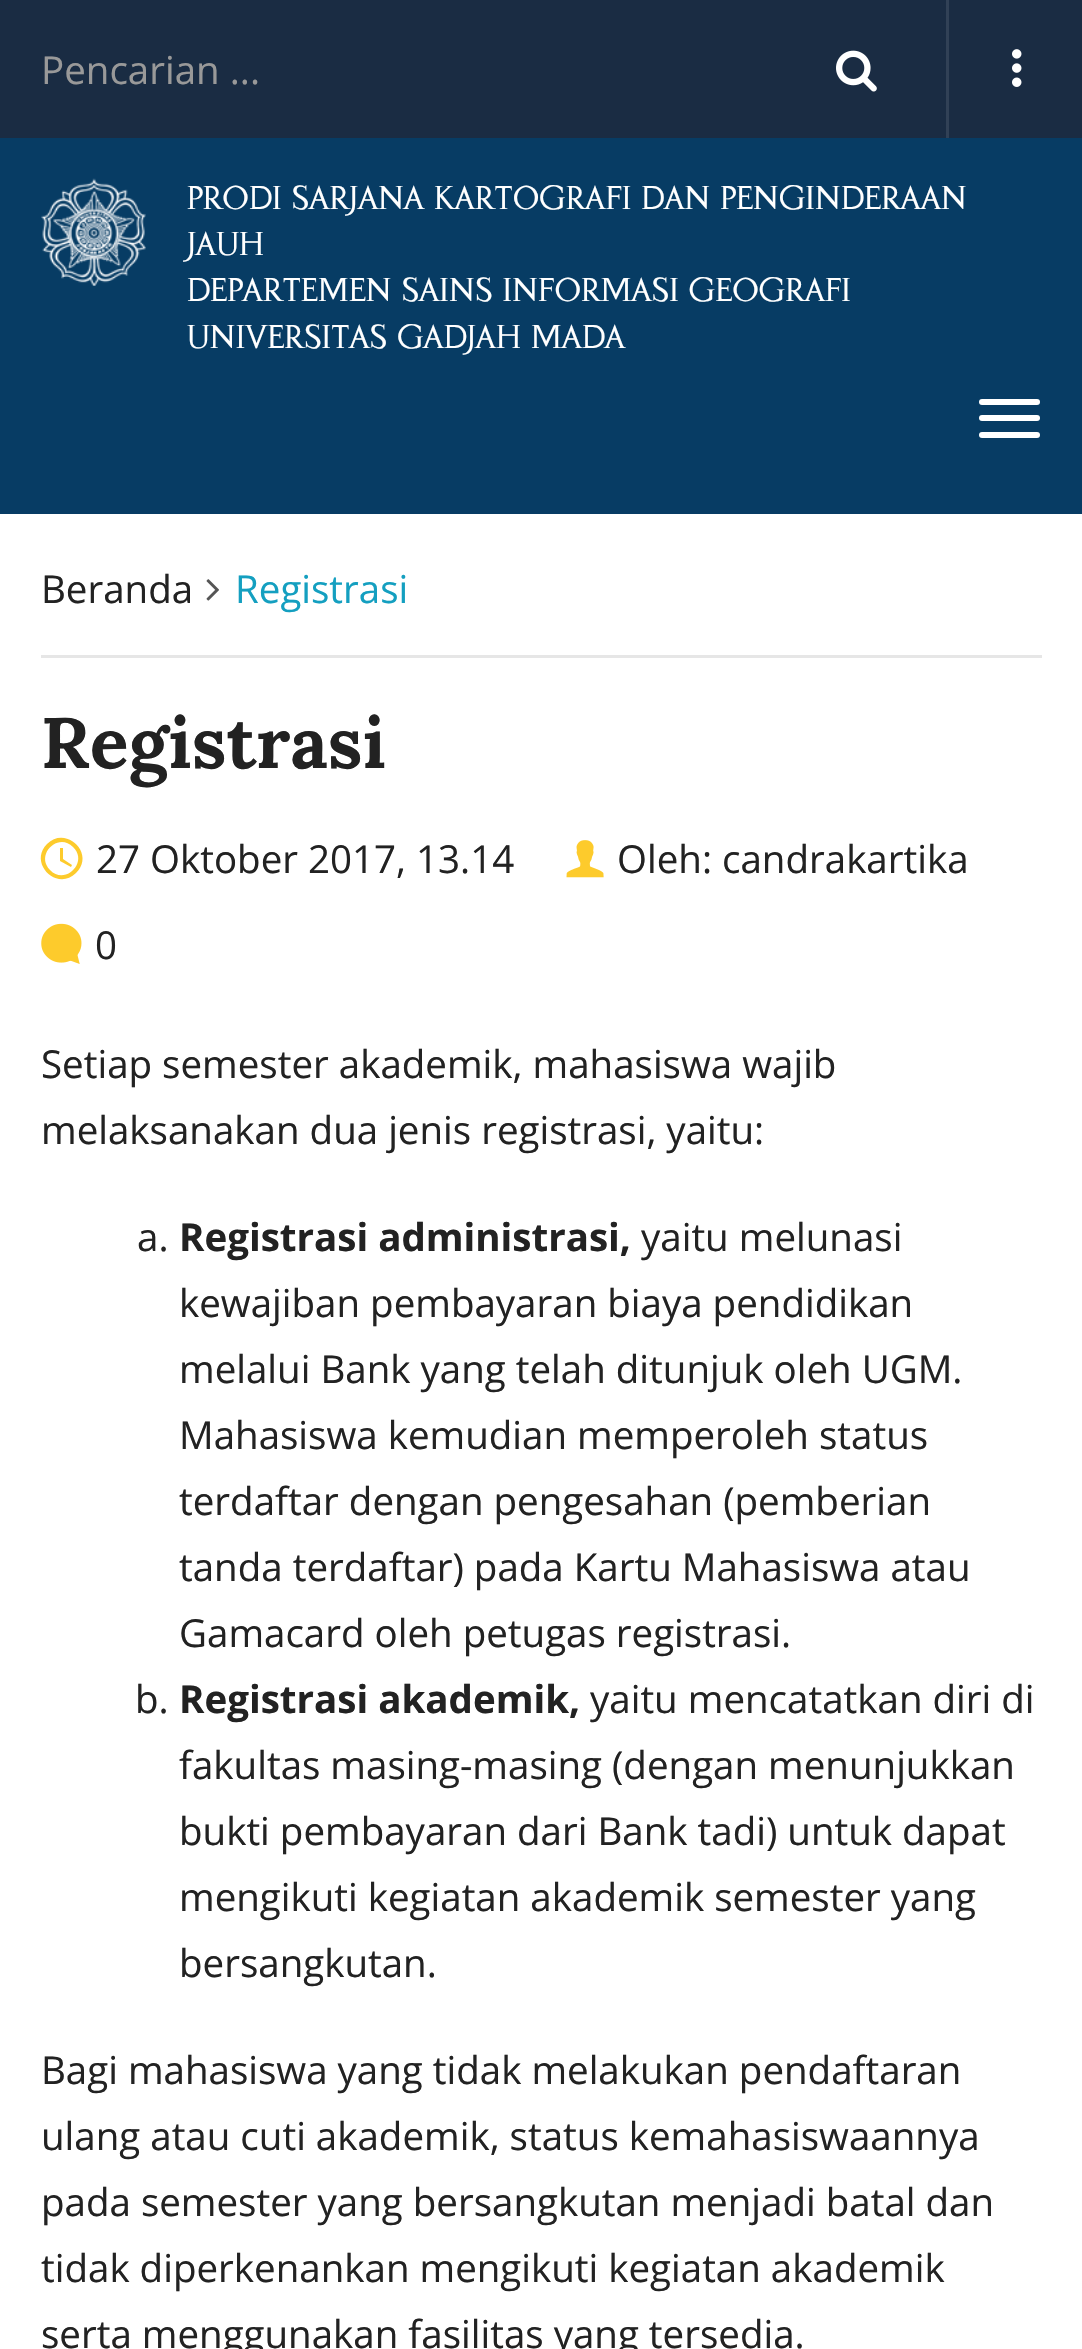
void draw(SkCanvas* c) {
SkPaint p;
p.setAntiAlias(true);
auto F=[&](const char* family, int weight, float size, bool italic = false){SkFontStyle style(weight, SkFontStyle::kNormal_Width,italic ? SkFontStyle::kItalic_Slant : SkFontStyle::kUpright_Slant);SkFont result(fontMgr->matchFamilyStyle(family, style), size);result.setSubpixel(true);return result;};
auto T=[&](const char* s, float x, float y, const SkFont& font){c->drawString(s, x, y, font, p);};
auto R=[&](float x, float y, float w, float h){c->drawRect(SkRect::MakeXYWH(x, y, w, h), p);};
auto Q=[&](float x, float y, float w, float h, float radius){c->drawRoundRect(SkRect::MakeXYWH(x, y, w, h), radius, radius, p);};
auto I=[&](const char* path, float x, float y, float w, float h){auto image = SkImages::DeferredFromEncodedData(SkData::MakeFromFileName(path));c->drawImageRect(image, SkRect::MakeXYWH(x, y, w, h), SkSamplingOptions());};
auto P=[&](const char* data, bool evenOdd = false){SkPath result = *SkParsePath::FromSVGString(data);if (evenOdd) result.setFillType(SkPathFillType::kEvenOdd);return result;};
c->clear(0xffffffff);
p.setColor(0xff073c64);
R(0,138,1082,376);
p.setColor(0xff1a2c43);
R(0,0,1082,138);
auto f1 = F("Open Sans",400,38.5);
p.setColor(0xff999999);
T("Pencarian ...",41,84,f1);
I("1.png",836,50,41,42);
p.setColor(0xff314156);
R(946,0,3,138);
I("2.png",1012,49,10,38);
I("3.png",41,178,105,108);
auto f2 = F("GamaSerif",400,33);
p.setColor(0xffffffff);
T("PRODI SARJANA KARTOGRAFI DAN PENGINDERAAN",187,209,f2);
T("JAUH",187,255,f2);
T("DEPARTEMEN SAINS INFORMASI GEOGRAFI",187,301,f2);
T("UNIVERSITAS GADJAH MADA",187,348,f2);
Q(979,399,61,6,3);
Q(979,415,61,6,3);
Q(979,432,61,6,3);
p.setColor(0xffe6e6e6);
R(41,655,1001,3);
p.setColor(0xff222222);
T("Beranda",41,603,f1);
I("4.png",206,579,13,22);
p.setColor(0xff149fc0);
T("Registrasi",235,603,f1);
auto f3 = F("Lora",700,71.5);
p.setColor(0xff222222);
T("Registrasi",41,768,f3);
p.setColor(0xfffdcb2c);
c->drawPath(P("M47 844c19-19 49 10 29 29c-19 19-48-10-29-29zm3 26c15 16 39-8 23-23c-15-15-38 8-23 23zm13-22v11l9 6l-1 2l-11-6v-13z"),p);
p.setColor(0xff222222);
T("27 Oktober 2017, 13.14",96,873,f1);
I("5.png",566,840,38,38);
T("Oleh: candrakartika",617,873,f1);
I("6.png",41,923,41,41);
T("0",95,959,f1);
T("Setiap semester akademik, mahasiswa wajib",41,1078,f1);
T("melaksanakan dua jenis registrasi, yaitu:",41,1144,f1);
T("a.",137,1251,f1);
auto f4 = F("Open Sans",700,38.5);
T("Registrasi administrasi,",179,1251,f4);
T("yaitu melunasi",641,1251,f1);
T("kewajiban pembayaran biaya pendidikan",179,1317,f1);
T("melalui Bank yang telah ditunjuk oleh UGM.",179,1383,f1);
T("Mahasiswa kemudian memperoleh status",179,1449,f1);
T("terdaftar dengan pengesahan (pemberian",179,1515,f1);
T("tanda terdaftar) pada Kartu Mahasiswa atau",179,1581,f1);
T("Gamacard oleh petugas registrasi.",179,1647,f1);
T("b.",135,1713,f1);
T("Registrasi akademik,",179,1713,f4);
T("yaitu mencatatkan diri di",590,1713,f1);
T("fakultas masing-masing (dengan menunjukkan",179,1779,f1);
T("bukti pembayaran dari Bank tadi) untuk dapat",179,1845,f1);
T("mengikuti kegiatan akademik semester yang",179,1911,f1);
T("bersangkutan.",179,1977,f1);
T("Bagi mahasiswa yang tidak melakukan pendaftaran",41,2084,f1);
T("ulang atau cuti akademik, status kemahasiswaannya",41,2150,f1);
T("pada semester yang bersangkutan menjadi batal dan",41,2216,f1);
T("tidak diperkenankan mengikuti kegiatan akademik",41,2282,f1);
T("serta menggunakan fasilitas yang tersedia.",41,2348,f1);
}
